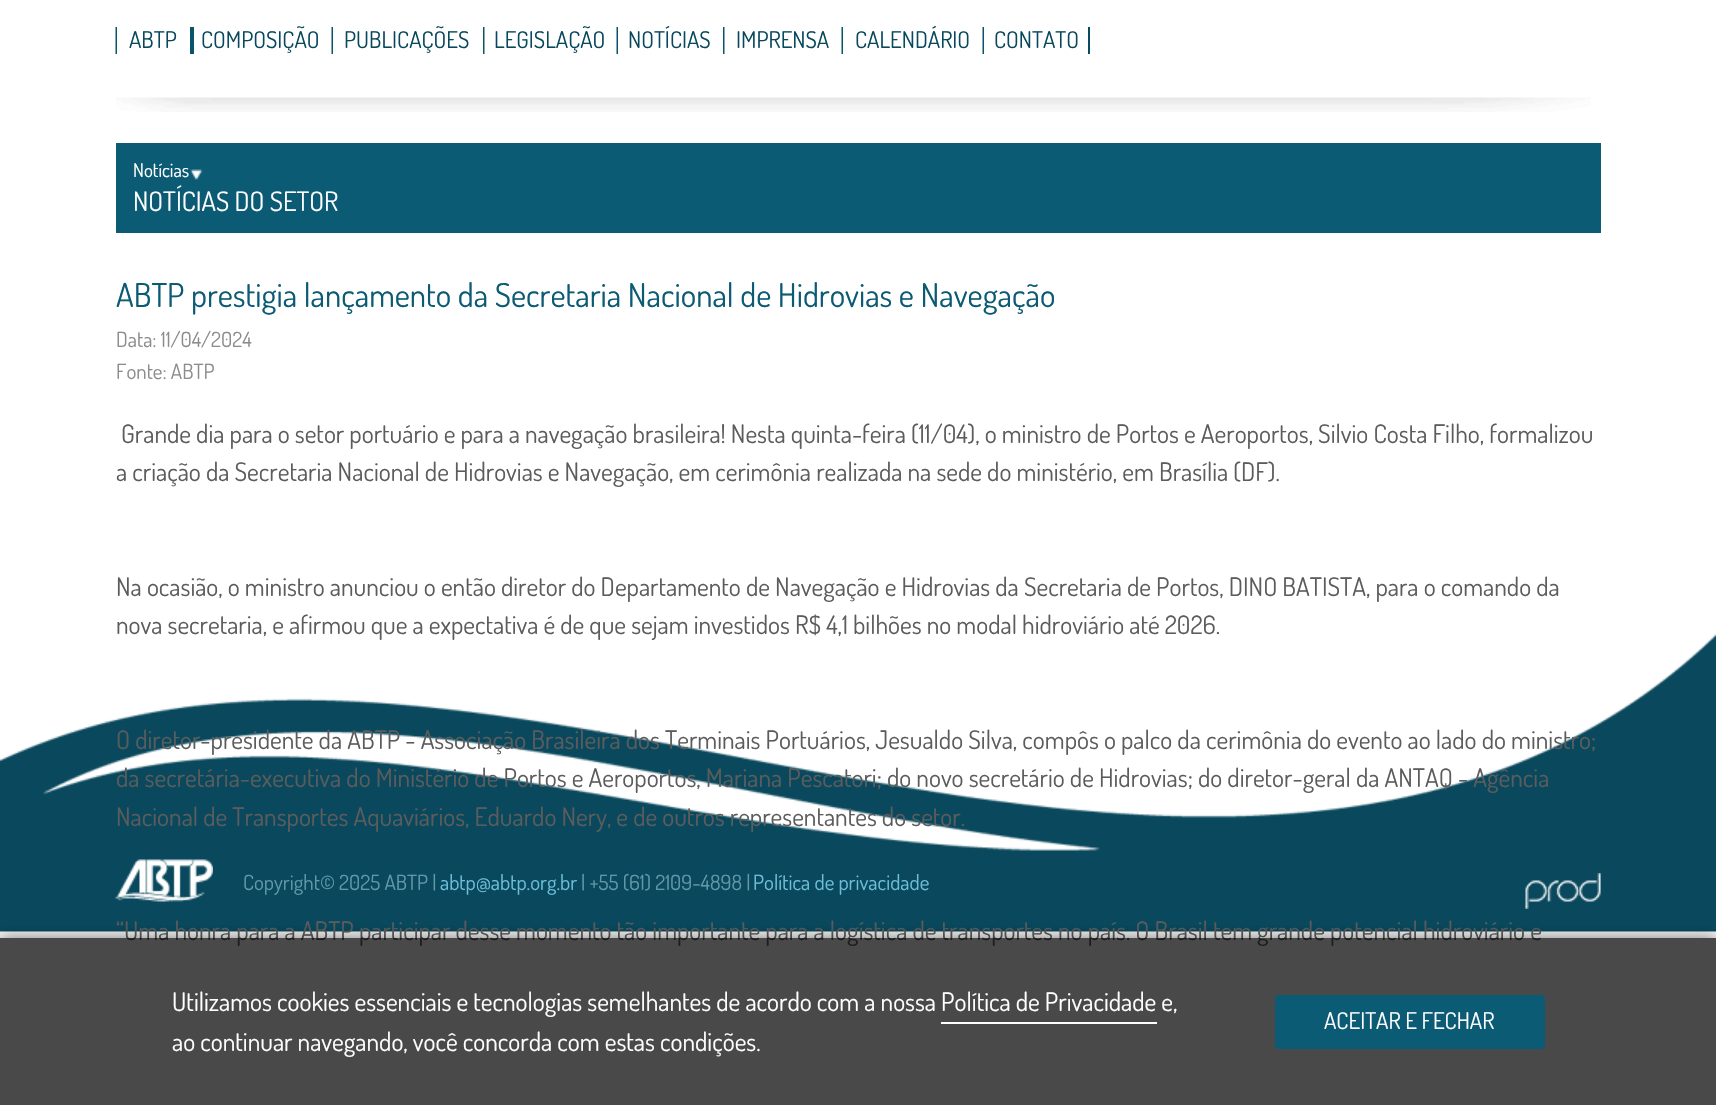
void draw(SkCanvas* c) {
SkPaint p;
p.setAntiAlias(true);
auto F=[&](const char* family, int weight, float size, bool italic = false){SkFontStyle style(weight, SkFontStyle::kNormal_Width,italic ? SkFontStyle::kItalic_Slant : SkFontStyle::kUpright_Slant);SkFont result(fontMgr->matchFamilyStyle(family, style), size);result.setSubpixel(true);return result;};
auto T=[&](const char* s, float x, float y, const SkFont& font){c->drawString(s, x, y, font, p);};
auto R=[&](float x, float y, float w, float h){c->drawRect(SkRect::MakeXYWH(x, y, w, h), p);};
auto Q=[&](float x, float y, float w, float h, float radius){c->drawRoundRect(SkRect::MakeXYWH(x, y, w, h), radius, radius, p);};
auto I=[&](const char* path, float x, float y, float w, float h){auto image = SkImages::DeferredFromEncodedData(SkData::MakeFromFileName(path));c->drawImageRect(image, SkRect::MakeXYWH(x, y, w, h), SkSamplingOptions());};
c->clear(0xfff6f5f5);
p.setColor(0xffffffff);
R(0,0,1716,932);
I("1.png",115,27,2,27);
auto f1 = F("Dosis",400,23);
p.setColor(0xff08485c);
T("ABTP",129,48,f1);
p.setColor(0xff09546b);
R(190,27,4,27);
p.setColor(0xff08485c);
T("COMPOSIÇÃO",201,48,f1);
I("1.png",331,27,2,27);
T("PUBLICAÇÕES",344,48,f1);
I("2.png",483,27,2,27);
T("LEGISLAÇÃO",494,48,f1);
I("1.png",616,27,2,27);
T("NOTÍCIAS",628,48,f1);
I("2.png",723,27,2,27);
T("IMPRENSA",736,48,f1);
I("1.png",841,27,2,27);
T("CALENDÁRIO",855,48,f1);
I("1.png",982,27,2,27);
T("CONTATO",994,48,f1);
p.setColor(0xff074b60);
R(1088,27,2,27);
I("3.png",116,97,1475,15);
p.setColor(0xff0c5b74);
R(116,143,1485,90);
I("4.png",190,169,13,11);
auto f2 = F("Dosis",400,19);
p.setColor(0xffffffff);
T("Notícias",133,177,f2);
auto f3 = F("Dosis",400,26.75);
T("NOTÍCIAS DO SETOR",133,211,f3);
auto f4 = F("Dosis",400,32.9);
p.setColor(0xff0c5b74);
T("ABTP prestigia lançamento da Secretaria Nacional de Hidrovias e Navegação",116,307,f4);
auto f5 = F("Dosis",400,21);
p.setColor(0xff8c8c8c);
T("Data: 11/04/2024",116,347,f5);
T("Fonte: ABTP",116,379,f5);
auto f6 = F("Dosis",400,25.5);
p.setColor(0xff5c5c5c);
T("Grande dia para o setor portuário e para a navegação brasileira! Nesta quinta-feira (11/04), o ministro de Portos e Aeroportos, Silvio Costa Filho, formalizou",121,443,f6);
T("a criação da Secretaria Nacional de Hidrovias e Navegação, em cerimônia realizada na sede do ministério, em Brasília (DF).",116,481,f6);
T("Na ocasião, o ministro anunciou o então diretor do Departamento de Navegação e Hidrovias da Secretaria de Portos, DINO BATISTA, para o comando da",116,596,f6);
I("5.png",0,634,1716,298);
T("nova secretaria, e afirmou que a expectativa é de que sejam investidos R$ 4,1 bilhões no modal hidroviário até 2026.",116,634,f6);
T("O diretor-presidente da ABTP - Associação Brasileira dos Terminais Portuários, Jesualdo Silva, compôs o palco da cerimônia do evento ao lado do ministro;",116,749,f6);
T("da secretária-executiva do Ministério de Portos e Aeroportos, Mariana Pescatori; do novo secretário de Hidrovias; do diretor-geral da ANTAQ - Agência",116,787,f6);
T("Nacional de Transportes Aquaviários, Eduardo Nery, e de outros representantes do setor.",116,826,f6);
T("“Uma honra para a ABTP participar desse momento tão importante para a logística de transportes no país. O Brasil tem grande potencial hidroviário e",116,940,f6);
I("6.png",115,859,98,43);
p.setColor(0xff6199ab);
T("Copyright© 2025 ABTP |",243,890,f5);
p.setColor(0xff6dbfd9);
T("abtp@abtp.org.br",440,890,f5);
p.setColor(0xff6199ab);
T("| +55 (61) 2109-4898 |",581,890,f5);
p.setColor(0xff6dbfd9);
T("Política de privacidade",753,890,f5);
I("7.png",1525,873,76,36);
c->save();
c->clipRect(SkRect::MakeXYWH(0,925,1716,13));
p.setColor(0x80000000);
p.setMaskFilter(SkMaskFilter::MakeBlur(kNormal_SkBlurStyle, 7.5));
c->drawRect(SkRect::MakeXYWH(0,938,1716,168),p);
p.setMaskFilter(nullptr);
c->restore();
p.setColor(0xb3000000);
R(0,938,1716,167);
p.setColor(0xffffffff);
T("Utilizamos cookies essenciais e tecnologias semelhantes de acordo com a nossa Política de Privacidade e,",172,1011,f6);
R(941,1022,216,2);
T("ao continuar navegando, você concorda com estas condições.",172,1051,f6);
p.setColor(0xff0c5b74);
Q(1275,995,270,54,3);
p.setColor(0xffffffff);
T("ACEITAR E FECHAR",1324,1029,f1);
}
